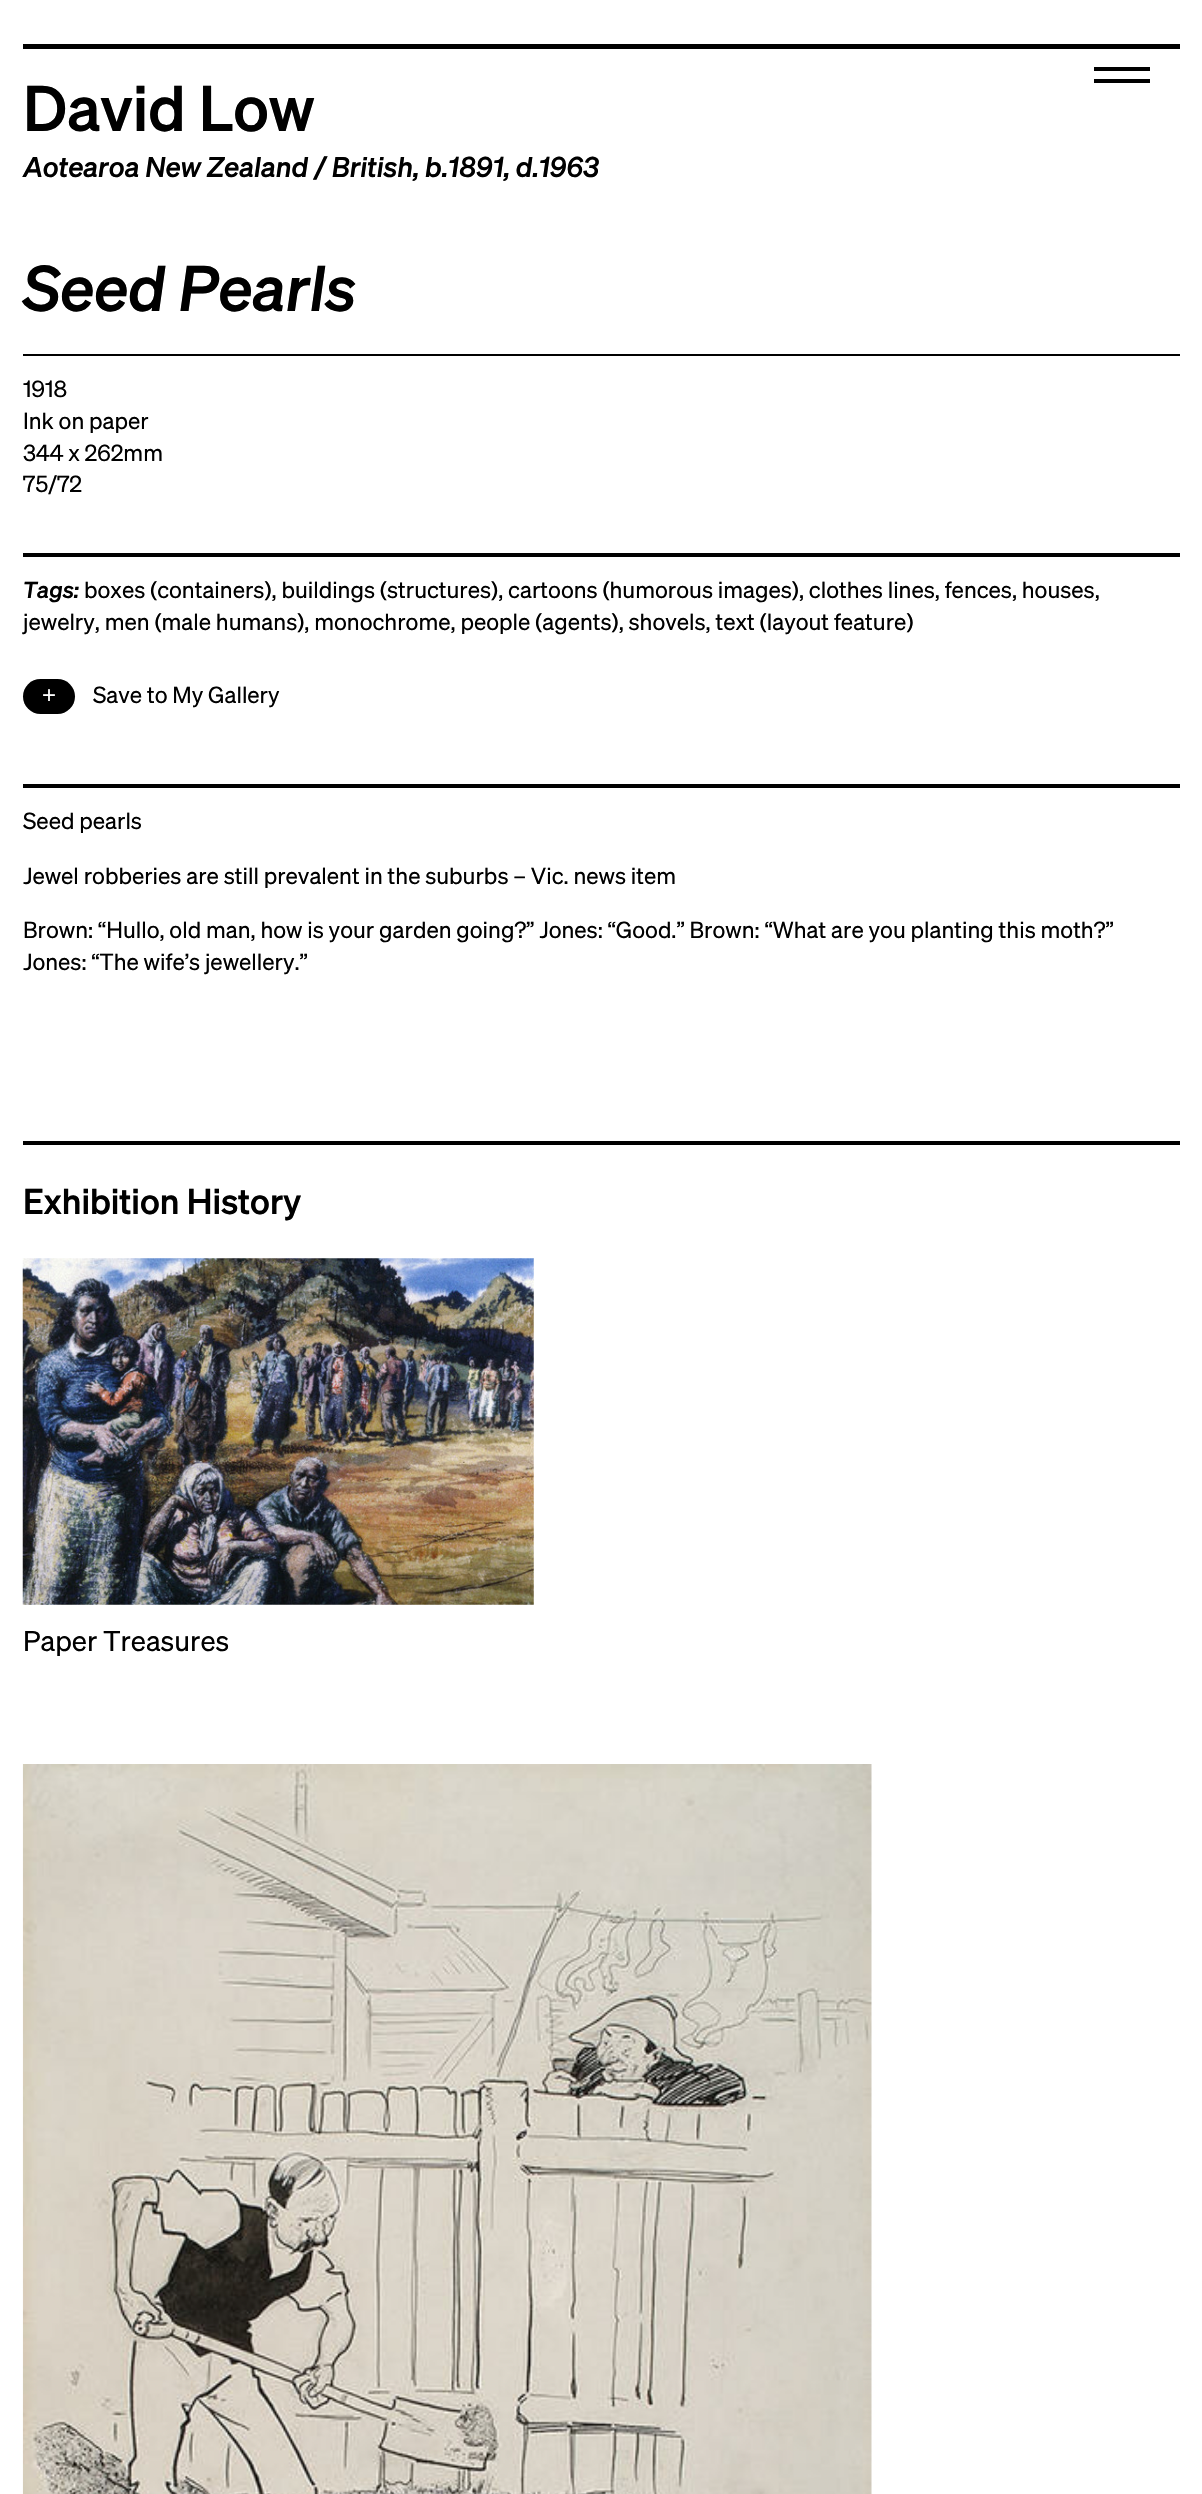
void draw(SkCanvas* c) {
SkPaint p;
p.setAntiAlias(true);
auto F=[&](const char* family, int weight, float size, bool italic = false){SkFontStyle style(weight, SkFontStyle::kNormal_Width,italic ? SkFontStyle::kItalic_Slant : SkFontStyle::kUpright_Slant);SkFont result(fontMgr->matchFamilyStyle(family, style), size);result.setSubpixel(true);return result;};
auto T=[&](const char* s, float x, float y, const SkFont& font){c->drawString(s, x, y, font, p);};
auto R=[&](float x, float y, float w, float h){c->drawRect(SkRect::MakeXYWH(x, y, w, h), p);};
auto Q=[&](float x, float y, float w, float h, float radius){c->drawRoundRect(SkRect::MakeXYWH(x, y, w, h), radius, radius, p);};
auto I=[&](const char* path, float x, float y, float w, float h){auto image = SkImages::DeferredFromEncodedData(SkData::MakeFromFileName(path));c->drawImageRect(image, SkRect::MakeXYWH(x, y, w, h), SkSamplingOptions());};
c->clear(0xffffffff);
p.setColor(0xff000000);
R(1094,79,56,4);
R(1094,67,56,4);
R(23,44,1157,5);
auto f1 = F("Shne",500,63,true);
T("David Low",23,131,f1);
auto f2 = F("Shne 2",500,28,true);
T("Aotearoa New Zealand / British, b.1891, d.1963",23,177,f2);
auto f3 = F("Shne 2",500,63,true);
T("Seed Pearls",23,311,f3);
R(23,354,1157,2);
auto f4 = F("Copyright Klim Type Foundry",400,22.75,true);
T("1918",23,397,f4);
T("Ink on paper",23,429,f4);
T("344 x 262mm",23,461,f4);
T("75/72",23,492,f4);
R(23,553,1157,4);
auto f5 = F("Shne 2",500,22.75,true);
T("Tags:",23,598,f5);
T("boxes (containers), buildings (structures), cartoons (humorous images), clothes lines, fences, houses,",84,598,f4);
T("jewelry, men (male humans), monochrome, people (agents), shovels, text (layout feature)",23,630,f4);
Q(23,679,52,35,17.5);
auto f6 = F("Liberation Sans",400,24);
p.setColor(0xffffffff);
T("+",42,703,f6);
p.setColor(0xff000000);
T("Save to My Gallery",93,703,f4);
R(23,784,1157,4);
T("Seed pearls",23,829,f4);
T("Jewel robberies are still prevalent in the suburbs – Vic. news item",23,884,f4);
T("Brown: “Hullo, old man, how is your garden going?” Jones: “Good.” Brown: “What are you planting this moth?”",23,938,f4);
T("Jones: “The wife’s jewellery.”",23,970,f4);
R(23,1141,1157,4);
auto f7 = F("Shne",500,35,true);
T("Exhibition History",23,1214,f7);
I("1.png",22,1258,512,347);
auto f8 = F("Copyright Klim Type Foundry",400,28,true);
T("Paper Treasures",23,1651,f8);
I("2.png",22,1764,850,730);
}
